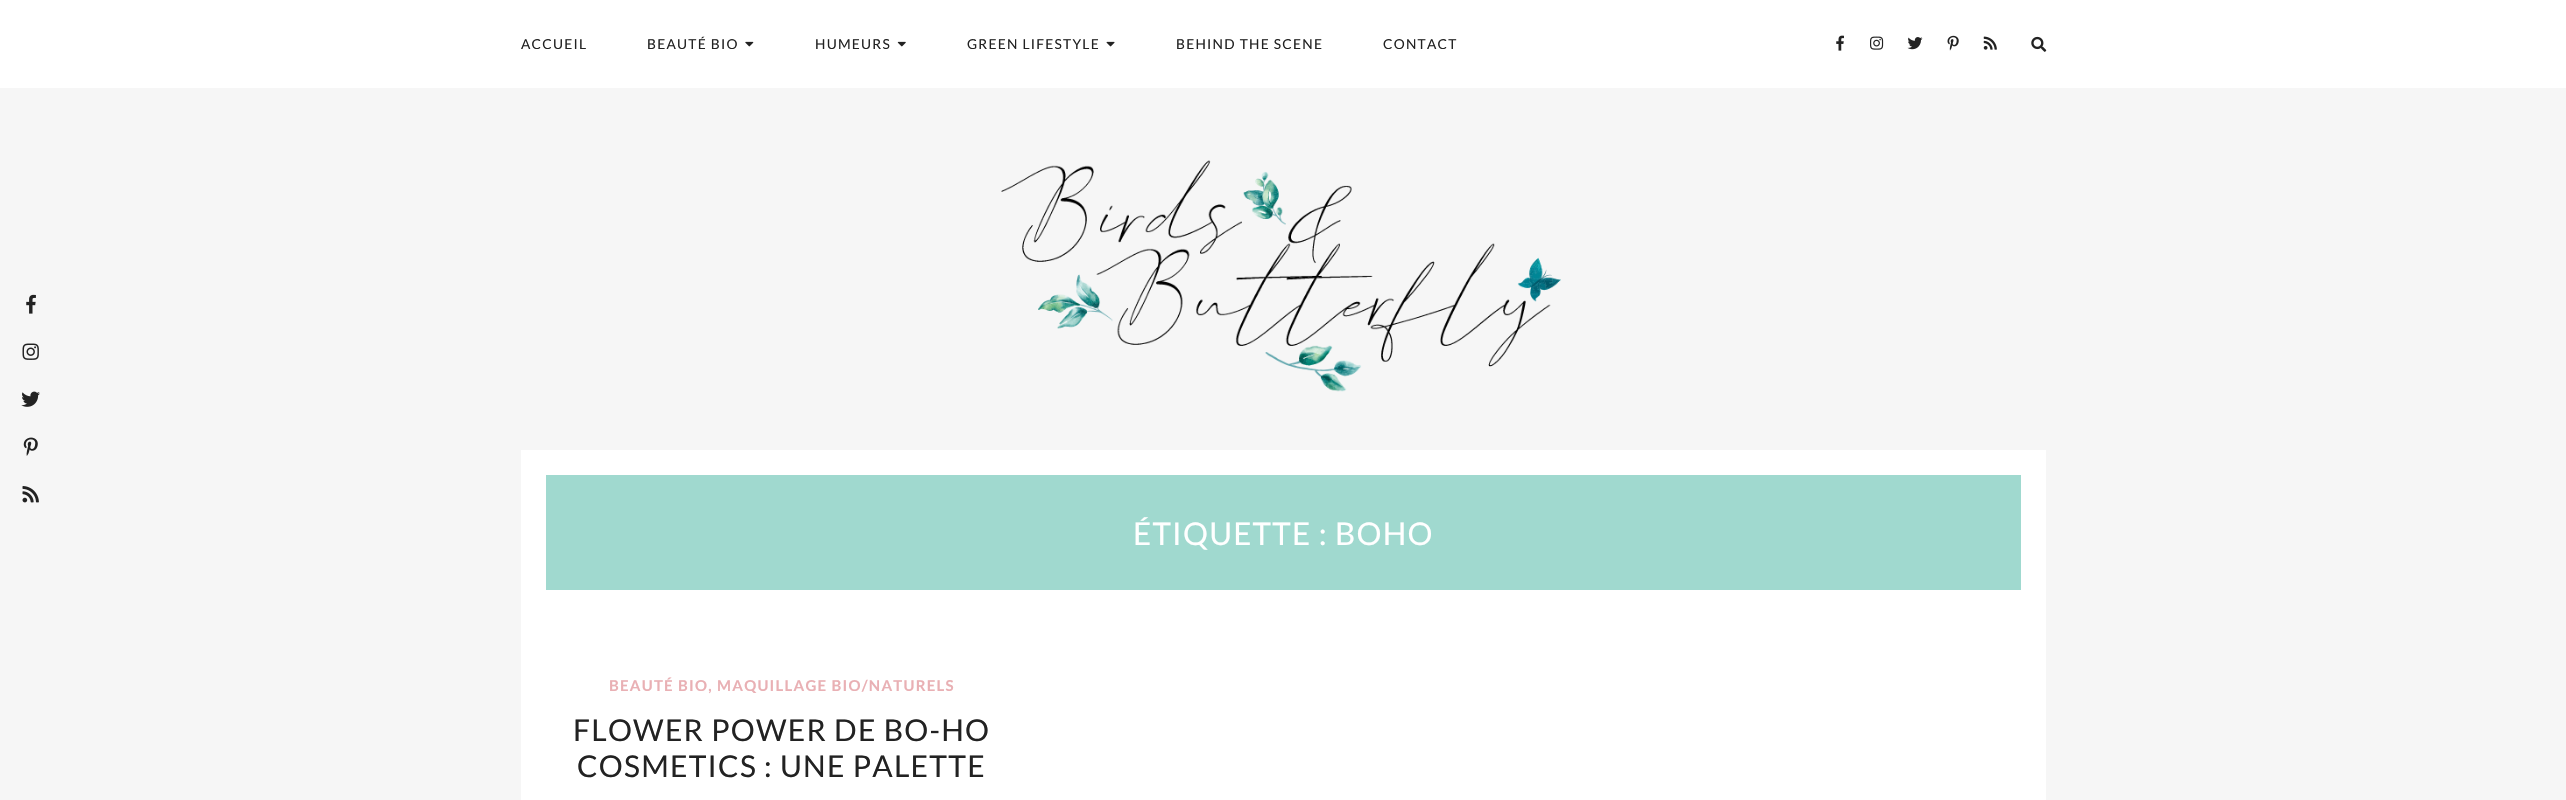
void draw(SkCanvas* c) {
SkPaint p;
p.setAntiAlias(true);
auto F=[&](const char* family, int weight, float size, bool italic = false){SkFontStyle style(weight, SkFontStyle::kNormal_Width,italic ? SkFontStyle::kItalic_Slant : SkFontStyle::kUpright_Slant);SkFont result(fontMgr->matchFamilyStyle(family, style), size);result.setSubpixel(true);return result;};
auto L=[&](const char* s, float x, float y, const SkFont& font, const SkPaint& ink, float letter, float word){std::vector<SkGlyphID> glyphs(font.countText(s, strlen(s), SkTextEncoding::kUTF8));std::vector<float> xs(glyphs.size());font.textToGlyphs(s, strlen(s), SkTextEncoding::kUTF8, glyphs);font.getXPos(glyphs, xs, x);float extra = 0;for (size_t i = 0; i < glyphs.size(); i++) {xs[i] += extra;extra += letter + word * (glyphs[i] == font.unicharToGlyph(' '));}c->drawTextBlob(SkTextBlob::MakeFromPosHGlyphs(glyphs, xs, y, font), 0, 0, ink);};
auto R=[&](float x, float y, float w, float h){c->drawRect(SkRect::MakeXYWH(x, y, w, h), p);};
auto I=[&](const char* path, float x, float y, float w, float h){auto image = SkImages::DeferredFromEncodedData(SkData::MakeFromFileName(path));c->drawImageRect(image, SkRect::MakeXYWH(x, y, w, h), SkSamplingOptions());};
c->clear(0xfff6f6f6);
I("1.png",26,294,10,20);
I("2.png",22,343,17,17);
I("3.png",21,391,19,16);
I("4.png",23,437,15,19);
I("5.png",22,486,17,17);
p.setColor(0xffffffff);
R(0,0,2566,88);
auto f1 = F("Lato",400,13.75);
p.setColor(0xff222222);
L("ACCUEIL",521,49,f1,p,1.25,0);
L("BEAUTÉ BIO",647,49,f1,p,1.25,0);
I("6.png",745,41,9,6);
L("HUMEURS",815,49,f1,p,1.25,0);
I("7.png",897,41,9,6);
L("GREEN LIFESTYLE",967,49,f1,p,1.25,0);
I("8.png",1106,41,9,6);
L("BEHIND THE SCENE",1176,49,f1,p,1.25,0);
L("CONTACT",1383,49,f1,p,1.25,0);
I("9.png",1836,35,8,16);
I("10.png",1870,36,14,14);
I("11.png",1907,37,16,13);
I("12.png",1947,35,12,16);
I("13.png",1983,36,14,14);
I("14.png",2031,36,16,16);
I("15.png",1001,160,560,232);
p.setColor(0xffffffff);
R(521,450,1525,350);
p.setColor(0xffa0d9cf);
R(546,475,1475,115);
auto f2 = F("Lato",400,31.25);
p.setColor(0xffffffff);
L("ÉTIQUETTE : BOHO",1133,545,f2,p,1.25,0);
auto f3 = F("Lato",700,15);
p.setColor(0xffe9b0b4);
L("BEAUTÉ BIO, MAQUILLAGE BIO/NATURELS",609,691,f3,p,1.25,0);
auto f4 = F("Lato",400,30);
p.setColor(0xff222222);
L("FLOWER POWER DE BO-HO",573,741,f4,p,1.25,0);
L("COSMETICS : UNE PALETTE",577,777,f4,p,1.25,0);
}
